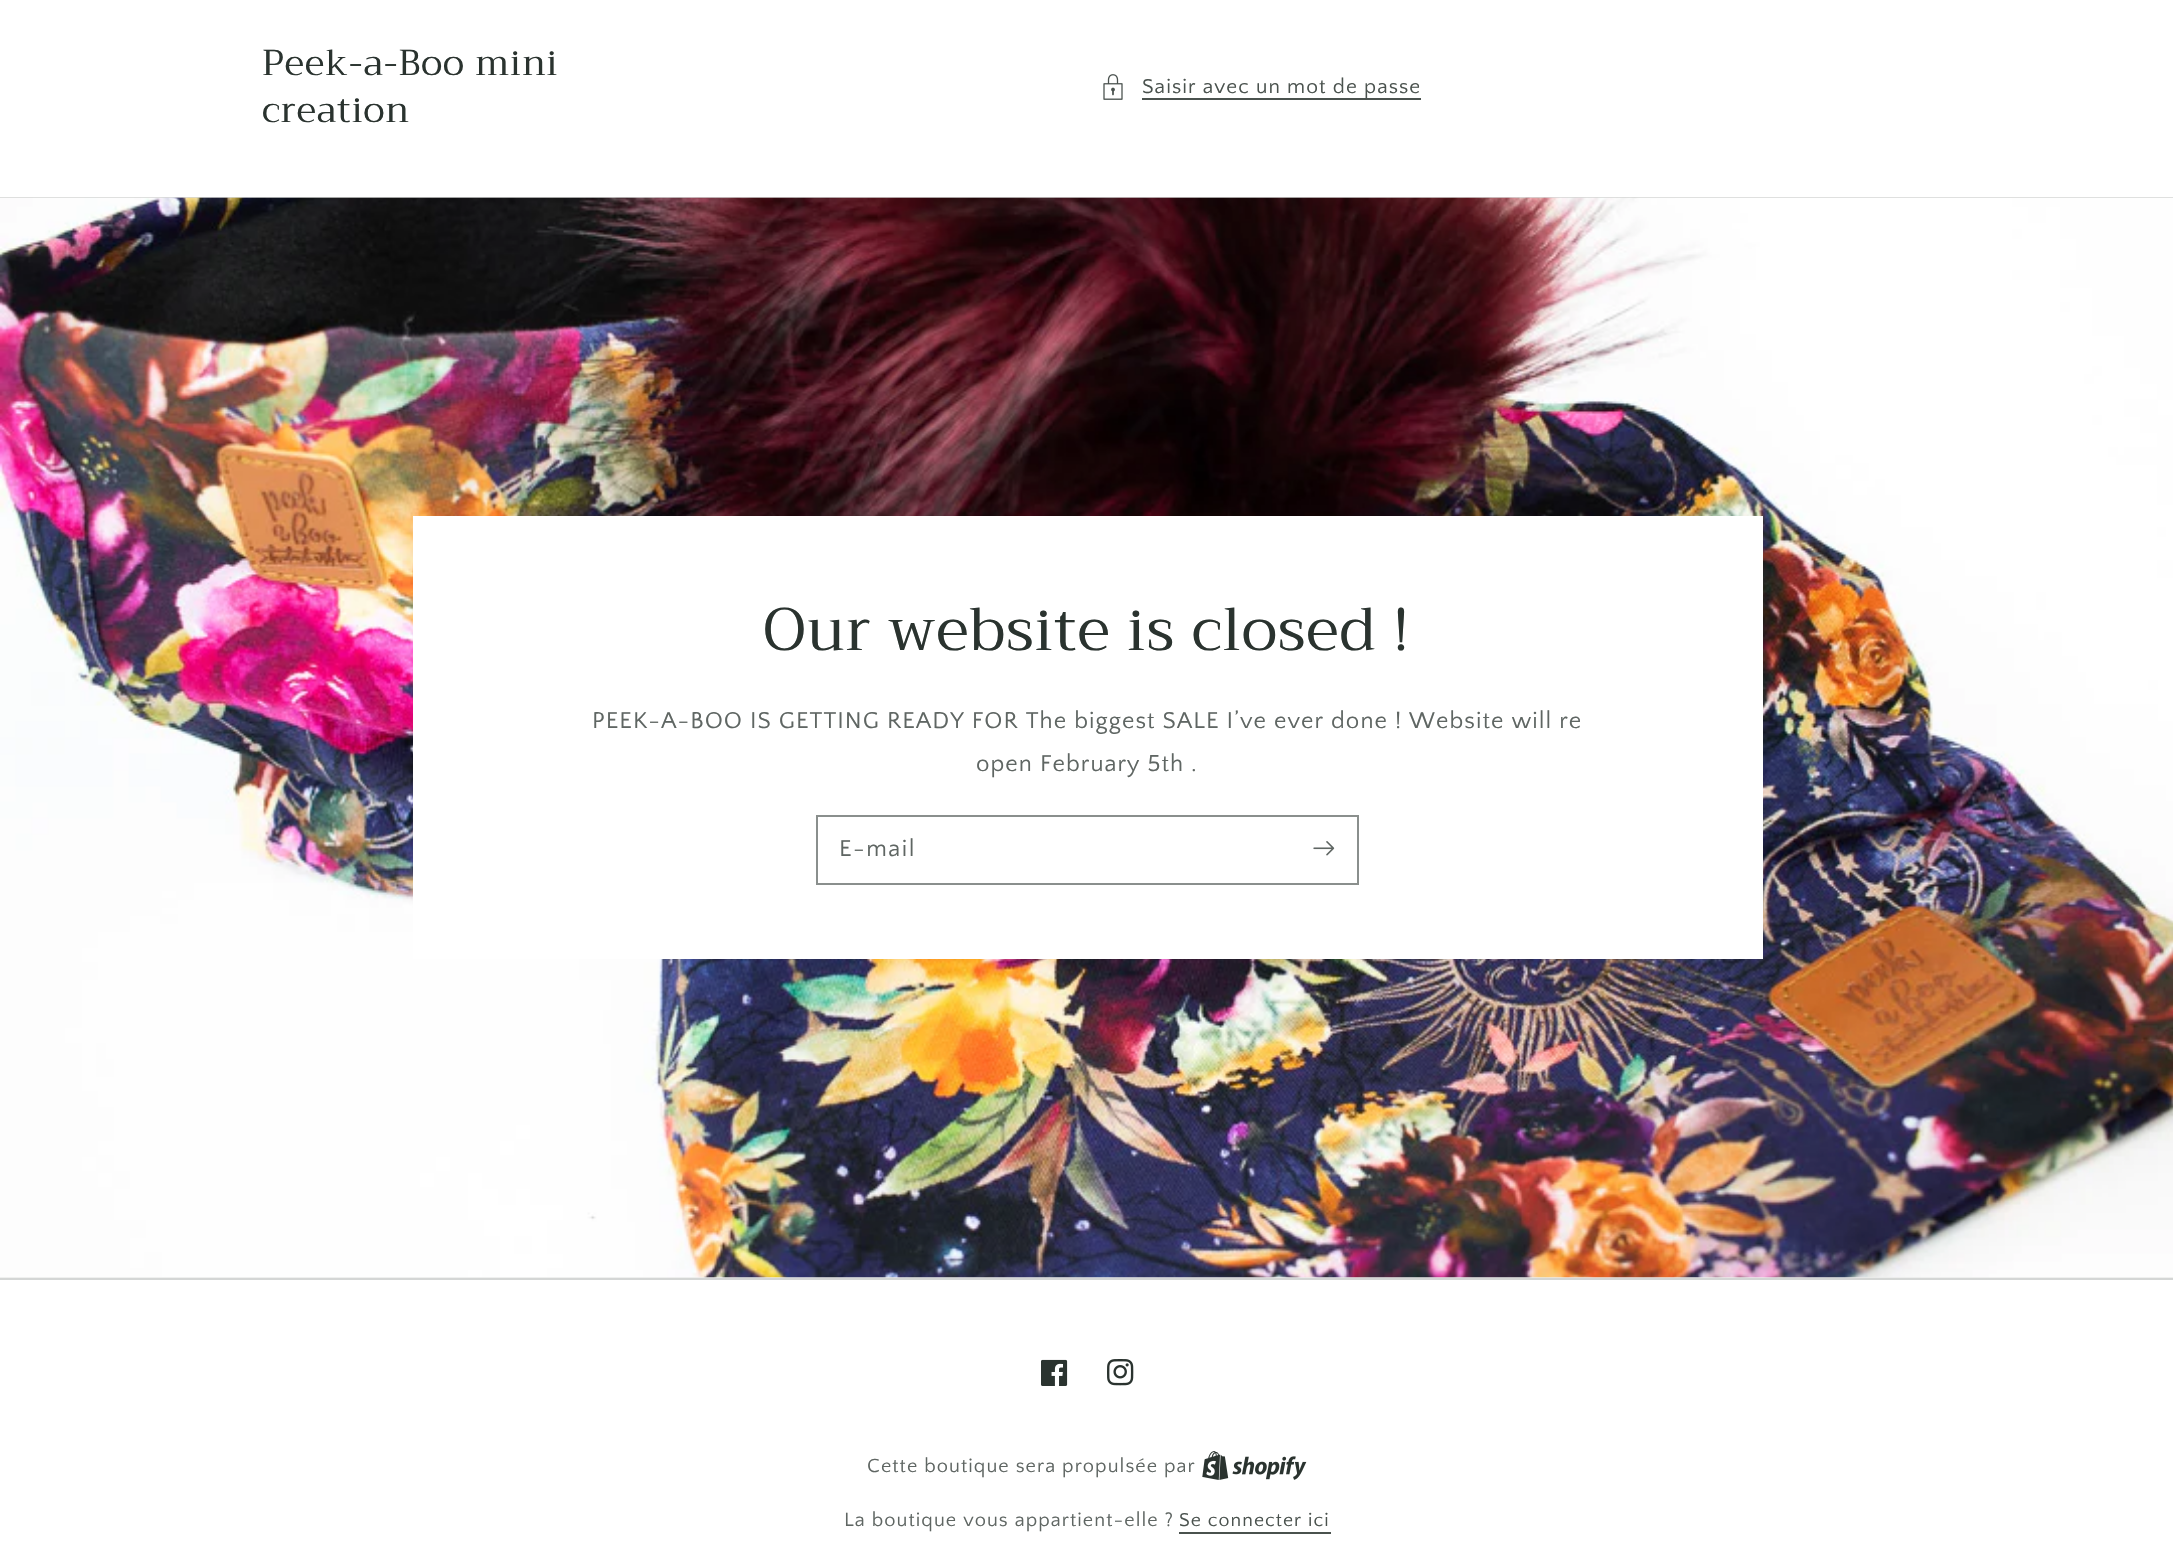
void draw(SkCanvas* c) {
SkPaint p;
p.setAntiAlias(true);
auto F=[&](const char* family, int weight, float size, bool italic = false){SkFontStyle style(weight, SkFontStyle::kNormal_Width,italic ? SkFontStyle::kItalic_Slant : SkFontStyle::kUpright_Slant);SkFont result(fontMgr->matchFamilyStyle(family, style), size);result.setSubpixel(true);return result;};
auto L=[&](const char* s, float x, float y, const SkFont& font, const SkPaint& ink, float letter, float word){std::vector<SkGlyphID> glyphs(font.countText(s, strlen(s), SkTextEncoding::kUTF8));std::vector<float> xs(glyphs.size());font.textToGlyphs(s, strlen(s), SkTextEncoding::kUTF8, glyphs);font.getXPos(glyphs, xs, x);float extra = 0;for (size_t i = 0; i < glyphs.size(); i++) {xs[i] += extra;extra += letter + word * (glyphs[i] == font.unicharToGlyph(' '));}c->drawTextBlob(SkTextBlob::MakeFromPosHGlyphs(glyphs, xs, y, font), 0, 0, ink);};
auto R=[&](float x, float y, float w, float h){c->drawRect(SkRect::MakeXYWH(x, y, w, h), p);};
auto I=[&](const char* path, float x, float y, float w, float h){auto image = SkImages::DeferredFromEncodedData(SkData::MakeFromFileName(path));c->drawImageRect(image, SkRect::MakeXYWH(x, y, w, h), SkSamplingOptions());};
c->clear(0xffffffff);
p.setColor(0xffeaebea);
R(0,1277,2173,1);
auto f1 = F("Trirong",400,36);
p.setColor(0xff2a332f);
L("Peek-a-Boo mini",262,75,f1,p,.9,0);
L("creation",262,122,f1,p,.9,0);
I("1.png",1103,74,20,26);
p.setColor(0xff4a524e);
R(1142,98,279,2);
auto f2 = F("Quattrocento Sans",400,21);
L("Saisir avec un mot de passe",1142,93,f2,p,1.05,0);
p.setColor(0xffd4d6d5);
R(0,197,2173,1);
I("2.png",0,197,2173,1081);
p.setColor(0xffffffff);
R(413,516,1350,443);
auto f3 = F("Trirong",400,60);
p.setColor(0xff2a332f);
L("Our website is closed !",763,650,f3,p,.9,0);
auto f4 = F("Quattrocento Sans",400,24);
p.setColor(0xff5f6663);
L("PEEK-A-BOO IS GETTING READY FOR The biggest SALE I’ve ever done ! Website will re",592,728,f4,p,1.05,0);
L("open February 5th .",976,771,f4,p,1.05,0);
p.setStroke(true);
p.setStrokeWidth(2);
p.setColor(0xff8a8f8d);
c->drawRect(SkRect::MakeXYWH(817,816,541,68),p);
p.setStroke(false);
p.setColor(0xff5f6663);
L("E-mail",839,856,f4,p,1.5,0);
I("3.png",1313,841,22,15);
p.setColor(0xffd4d6d5);
R(0,1278,2173,2);
I("4.png",1041,1359,27,27);
I("5.png",1107,1359,27,27);
auto f5 = F("Quattrocento Sans",400,20);
p.setColor(0xff5f6663);
L("Cette boutique sera propulsée par",867,1472,f5,p,1.05,0);
I("6.png",1202,1451,105,29);
L("La boutique vous appartient-elle ?",844,1526,f5,p,1.05,0);
auto f6 = F("Quattrocento Sans",400,19.5);
p.setColor(0xff4a524e);
L("Se connecter ici",1179,1526,f6,p,1.05,0);
R(1179,1532,152,2);
}
